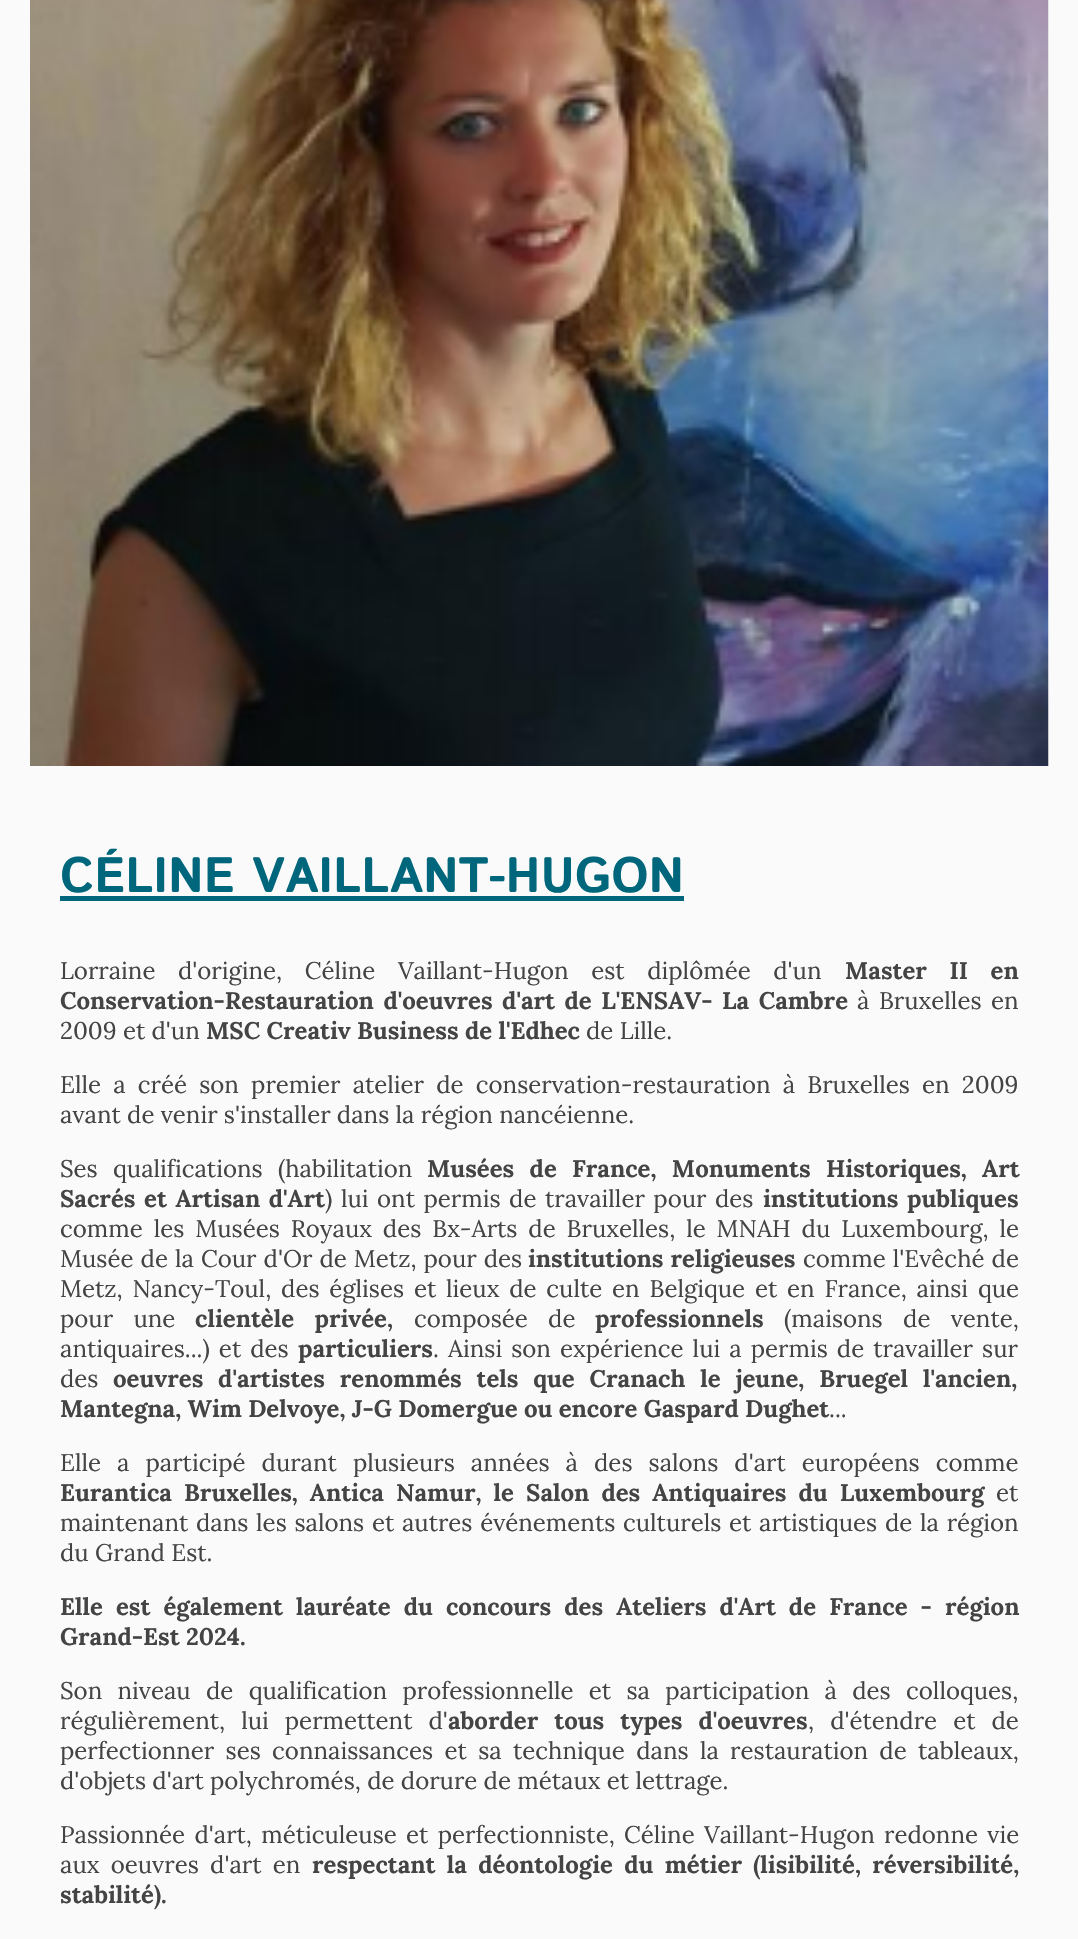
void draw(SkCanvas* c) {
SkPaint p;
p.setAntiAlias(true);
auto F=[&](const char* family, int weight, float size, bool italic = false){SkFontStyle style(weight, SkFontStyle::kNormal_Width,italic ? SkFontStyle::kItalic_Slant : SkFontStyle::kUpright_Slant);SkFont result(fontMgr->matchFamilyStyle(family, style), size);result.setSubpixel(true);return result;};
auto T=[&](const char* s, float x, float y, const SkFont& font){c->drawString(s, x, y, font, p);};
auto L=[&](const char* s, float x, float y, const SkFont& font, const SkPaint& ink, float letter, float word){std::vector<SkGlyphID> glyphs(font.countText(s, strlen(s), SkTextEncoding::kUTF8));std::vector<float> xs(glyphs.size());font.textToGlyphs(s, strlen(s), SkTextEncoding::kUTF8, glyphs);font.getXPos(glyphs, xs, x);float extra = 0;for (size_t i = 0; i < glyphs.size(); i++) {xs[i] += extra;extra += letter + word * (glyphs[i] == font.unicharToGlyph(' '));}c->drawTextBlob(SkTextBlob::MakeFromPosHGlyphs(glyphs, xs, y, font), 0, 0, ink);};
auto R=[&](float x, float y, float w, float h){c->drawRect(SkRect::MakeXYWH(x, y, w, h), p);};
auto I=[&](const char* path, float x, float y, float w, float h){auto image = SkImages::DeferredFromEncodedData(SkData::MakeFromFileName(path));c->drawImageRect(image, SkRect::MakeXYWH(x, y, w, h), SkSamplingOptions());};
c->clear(0xfffafafa);
I("1.png",30,0,1019,766);
auto f1 = F("Istok Web",700,49.5);
p.setColor(0xff00667b);
T("CÉLINE VAILLANT-HUGON",60,892,f1);
R(60,896,624,5);
auto f2 = F("Lora",400,24);
p.setColor(0xff444444);
L("Lorraine d'origine, Céline Vaillant-Hugon est diplômée d'un",60,979,f2,p,0,16.25);
auto f3 = F("Lora",700,24);
L("Master II en",845,979,f3,p,0,16.25);
L("Conservation-Restauration d'oeuvres d'art de L'ENSAV- La Cambre",60,1009,f3,p,0,3.25);
L("à Bruxelles en",857,1009,f2,p,0,3.25);
T("2009 et d'un",60,1039,f2);
T("MSC Creativ Business de l'Edhec",206,1039,f3);
T("de Lille.",586,1039,f2);
L("Elle a créé son premier atelier de conservation-restauration à Bruxelles en 2009",60,1093,f2,p,0,5.9);
T("avant de venir s'installer dans la région nancéienne.",60,1123,f2);
L("Ses qualifications (habilitation",60,1177,f2,p,0,9);
L("Musées de France, Monuments Historiques, Art",427,1177,f3,p,0,9);
L("Sacrés et Artisan d'Art",60,1207,f3,p,0,2.25);
L(") lui ont permis de travailler pour des",325,1207,f2,p,0,2.25);
L("institutions publiques",763,1207,f3,p,0,2.25);
L("comme les Musées Royaux des Bx-Arts de Bruxelles, le MNAH du Luxembourg, le",60,1237,f2,p,0,4.6);
L("Musée de la Cour d'Or de Metz, pour des",60,1267,f2,p,0,.75);
L("institutions religieuses",528,1267,f3,p,0,.75);
L("comme l'Evêché de",803,1267,f2,p,0,.75);
L("Metz, Nancy-Toul, des églises et lieux de culte en Belgique et en France, ainsi que",60,1297,f2,p,0,3.5);
L("pour une",60,1327,f2,p,0,14);
L("clientèle privée,",195,1327,f3,p,0,14);
L("composée de",414,1327,f2,p,0,14);
T("professionnels",595,1327,f3);
L("(maisons de vente,",784,1327,f2,p,0,14);
L("antiquaires...) et des",60,1357,f2,p,0,2.75);
T("particuliers",298,1357,f3);
L(". Ainsi son expérience lui a permis de travailler sur",433,1357,f2,p,0,2.75);
T("des",60,1387,f2);
L("oeuvres d'artistes renommés tels que Cranach le jeune, Bruegel l'ancien,",113,1387,f3,p,0,8.5);
T("Mantegna, Wim Delvoye, J-G Domergue ou encore Gaspard Dughet",60,1417,f3);
T("...",829,1417,f2);
L("Elle a participé durant plusieurs années à des salons d'art européens comme",60,1471,f2,p,0,9.75);
L("Eurantica Bruxelles, Antica Namur, le Salon des Antiquaires du Luxembourg",60,1501,f3,p,0,5.75);
T("et",996,1501,f2);
L("maintenant dans les salons et autres événements culturels et artistiques de la région",60,1531,f2,p,0,1.4);
T("du Grand Est.",60,1561,f2);
L("Elle est également lauréate du concours des Ateliers d'Art de France - région",60,1615,f3,p,0,6.75);
T("Grand-Est 2024.",60,1645,f3);
L("Son niveau de qualification professionnelle et sa participation à des colloques,",60,1699,f2,p,0,9);
L("régulièrement, lui permettent d'",60,1729,f2,p,0,9.75);
L("aborder tous types d'oeuvres",448,1729,f3,p,0,9.75);
L(", d'étendre et de",808,1729,f2,p,0,9.75);
L("perfectionner ses connaissances et sa technique dans la restauration de tableaux,",60,1759,f2,p,0,5);
T("d'objets d'art polychromés, de dorure de métaux et lettrage.",60,1789,f2);
L("Passionnée d'art, méticuleuse et perfectionniste, Céline Vaillant-Hugon redonne vie",60,1843,f2,p,0,3);
L("aux oeuvres d'art en",60,1873,f2,p,0,5);
L("respectant la déontologie du métier (lisibilité, réversibilité,",312,1873,f3,p,0,5);
T("stabilité).",60,1903,f3);
}
